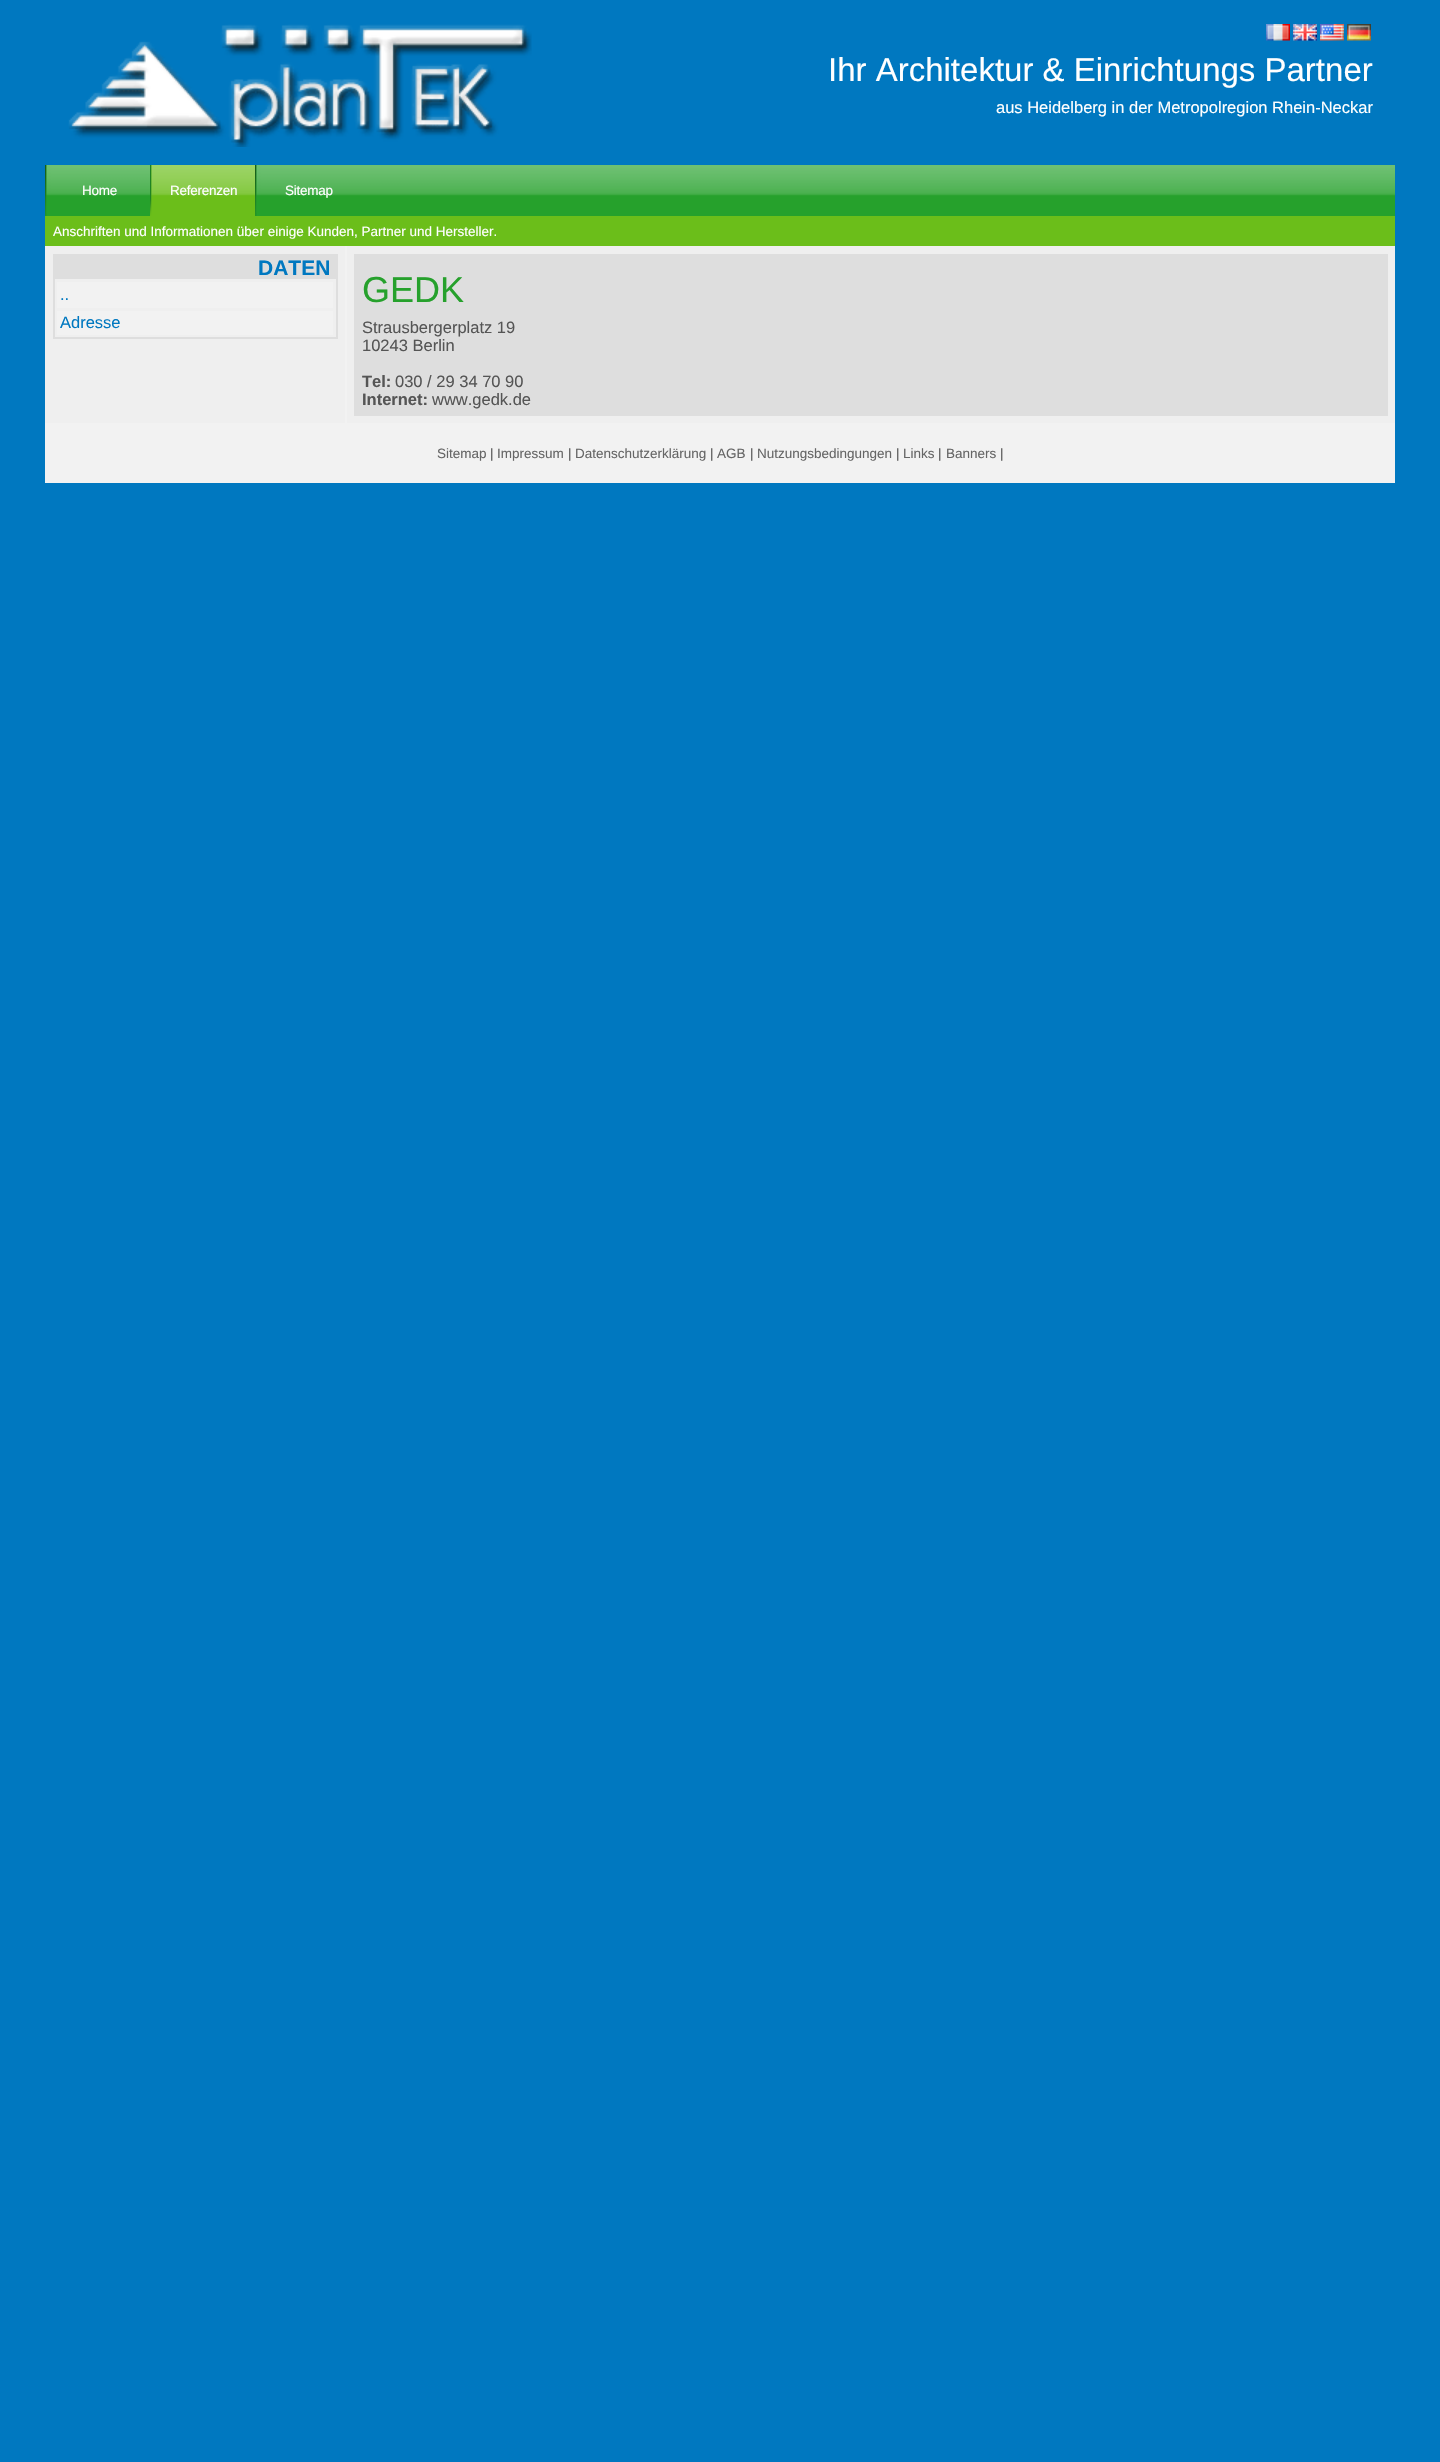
void draw(SkCanvas* c) {
SkPaint p;
p.setAntiAlias(true);
auto F=[&](const char* family, int weight, float size, bool italic = false){SkFontStyle style(weight, SkFontStyle::kNormal_Width,italic ? SkFontStyle::kItalic_Slant : SkFontStyle::kUpright_Slant);SkFont result(fontMgr->matchFamilyStyle(family, style), size);result.setSubpixel(true);return result;};
auto T=[&](const char* s, float x, float y, const SkFont& font){c->drawString(s, x, y, font, p);};
auto L=[&](const char* s, float x, float y, const SkFont& font, const SkPaint& ink, float letter, float word){std::vector<SkGlyphID> glyphs(font.countText(s, strlen(s), SkTextEncoding::kUTF8));std::vector<float> xs(glyphs.size());font.textToGlyphs(s, strlen(s), SkTextEncoding::kUTF8, glyphs);font.getXPos(glyphs, xs, x);float extra = 0;for (size_t i = 0; i < glyphs.size(); i++) {xs[i] += extra;extra += letter + word * (glyphs[i] == font.unicharToGlyph(' '));}c->drawTextBlob(SkTextBlob::MakeFromPosHGlyphs(glyphs, xs, y, font), 0, 0, ink);};
auto R=[&](float x, float y, float w, float h){c->drawRect(SkRect::MakeXYWH(x, y, w, h), p);};
auto I=[&](const char* path, float x, float y, float w, float h){auto image = SkImages::DeferredFromEncodedData(SkData::MakeFromFileName(path));c->drawImageRect(image, SkRect::MakeXYWH(x, y, w, h), SkSamplingOptions());};
c->clear(0xff0078c0);
I("1.png",68,24,464,123);
I("2.png",1266,24,24,17);
I("3.png",1293,24,24,17);
I("4.png",1320,24,24,17);
I("5.png",1347,24,24,17);
auto f1 = F("Liberation Sans",400,33);
p.setColor(0xffffffff);
T("Ihr Architektur & Einrichtungs Partner",828,81,f1);
auto f2 = F("Liberation Sans",400,16.5);
T("aus Heidelberg in der Metropolregion Rhein-Neckar",996,113,f2);
I("6.png",51,165,1344,51);
I("7.png",45,165,6,51);
I("8.png",46,165,5,48);
auto f3 = F("Liberation Sans",400,13.5);
L("Home",82,195,f3,p,-.25,0);
I("9.png",150,165,2,51);
I("10.png",151,165,104,51);
L("Referenzen",170,195,f3,p,-.25,0);
I("7.png",255,165,6,51);
I("8.png",256,165,5,48);
L("Sitemap",285,195,f3,p,-.25,0);
p.setColor(0xff6bbe1a);
R(45,216,1350,30);
p.setColor(0xffffffff);
T("Anschriften und Informationen über einige Kunden, Partner und Hersteller.",53,236,f3);
p.setColor(0xffefefef);
R(45,246,1350,177);
p.setStroke(true);
p.setStrokeWidth(2);
p.setColor(0xffdedede);
c->drawRect(SkRect::MakeXYWH(54,255,283,83),p);
p.setStroke(false);
R(55,256,281,23);
auto f4 = F("Liberation Sans",700,21);
p.setColor(0xff0078c0);
T("DATEN",258,275,f4);
p.setColor(0xfff2f2f2);
R(57,282,276,26);
p.setColor(0xff0078c0);
T("..",60,300,f2);
p.setColor(0xfff2f2f2);
R(57,311,276,24);
p.setColor(0xff0078c0);
T("Adresse",60,328,f2);
p.setColor(0xfff2f2f2);
R(345,246,2,177);
p.setColor(0xffdedede);
R(354,254,1034,162);
auto f5 = F("Liberation Sans",400,36);
p.setColor(0xff26a12c);
T("GEDK",362,302,f5);
p.setColor(0xff555555);
T("Strausbergerplatz 19",362,333,f2);
T("10243 Berlin",362,351,f2);
auto f6 = F("Liberation Sans",700,16.5);
T("Tel:",362,387,f6);
T("030 / 29 34 70 90",395,387,f2);
T("Internet:",362,405,f6);
T("www.gedk.de",432,405,f2);
p.setColor(0xfff2f2f2);
R(45,423,1350,60);
p.setColor(0xff666666);
T("Sitemap",437,458,f3);
p.setColor(0xff555555);
T("|",490,458,f3);
p.setColor(0xff666666);
T("Impressum",497,458,f3);
p.setColor(0xff555555);
T("|",568,458,f3);
p.setColor(0xff666666);
T("Datenschutzerklärung",575,458,f3);
p.setColor(0xff555555);
T("|",710,458,f3);
p.setColor(0xff666666);
T("AGB",717,458,f3);
p.setColor(0xff555555);
T("|",750,458,f3);
p.setColor(0xff666666);
T("Nutzungsbedingungen",757,458,f3);
p.setColor(0xff555555);
T("|",896,458,f3);
p.setColor(0xff666666);
T("Links",903,458,f3);
p.setColor(0xff555555);
T("|",938,458,f3);
p.setColor(0xff666666);
T("Banners",946,458,f3);
p.setColor(0xff555555);
T("|",1000,458,f3);
}
